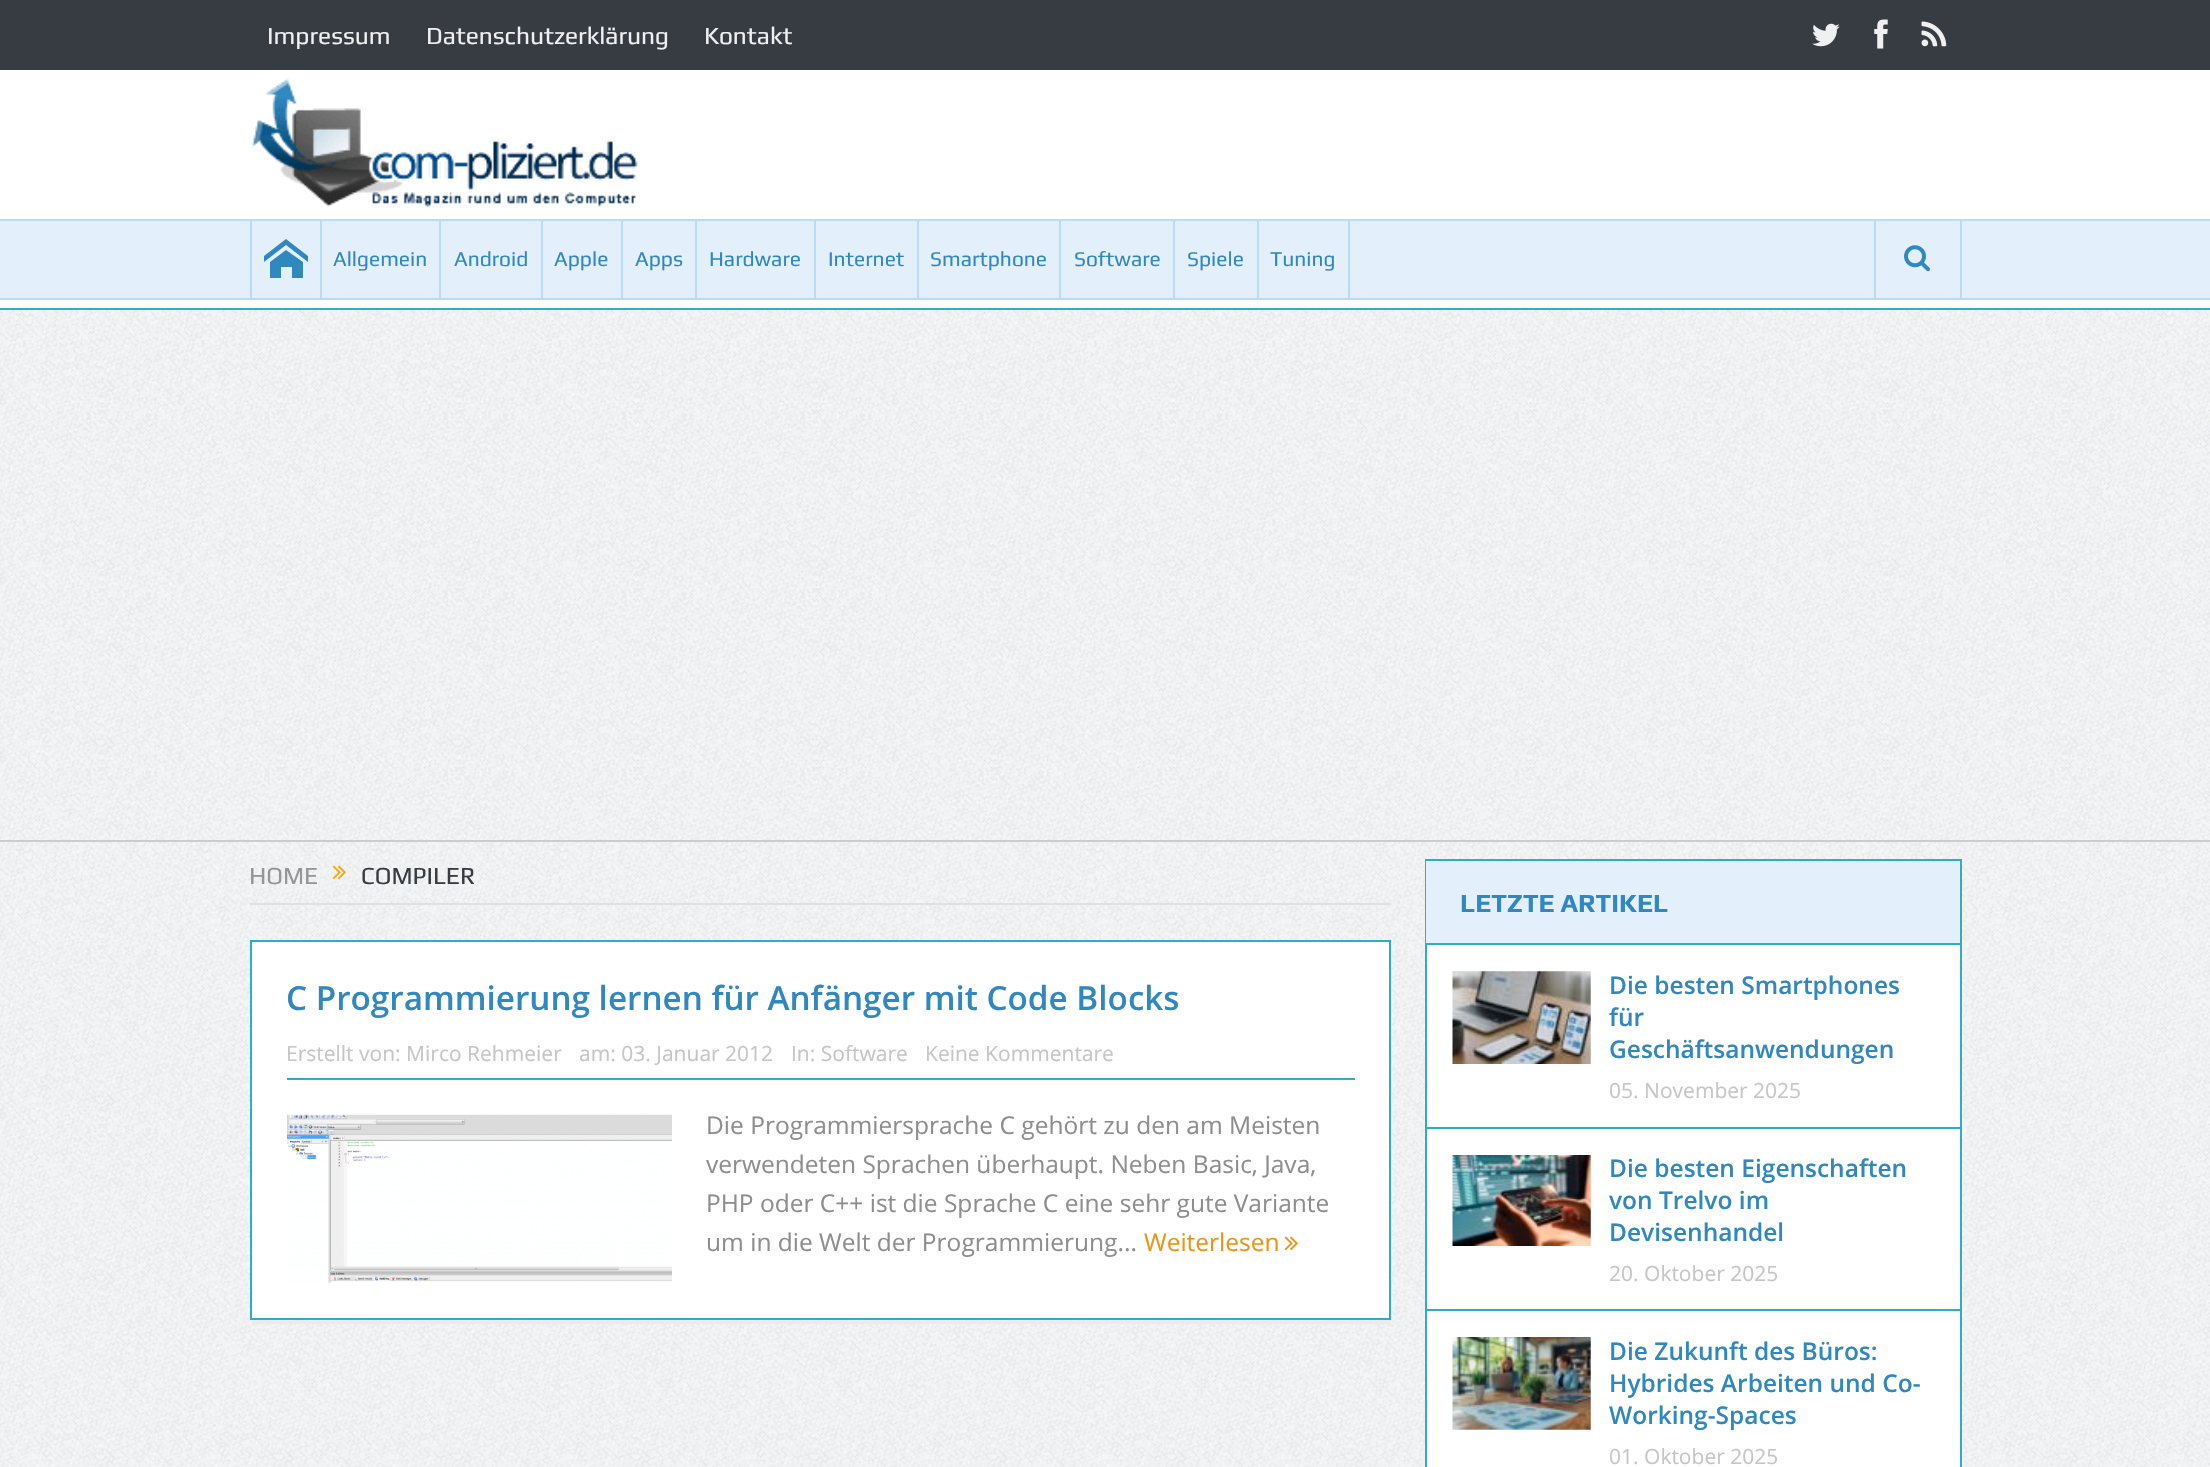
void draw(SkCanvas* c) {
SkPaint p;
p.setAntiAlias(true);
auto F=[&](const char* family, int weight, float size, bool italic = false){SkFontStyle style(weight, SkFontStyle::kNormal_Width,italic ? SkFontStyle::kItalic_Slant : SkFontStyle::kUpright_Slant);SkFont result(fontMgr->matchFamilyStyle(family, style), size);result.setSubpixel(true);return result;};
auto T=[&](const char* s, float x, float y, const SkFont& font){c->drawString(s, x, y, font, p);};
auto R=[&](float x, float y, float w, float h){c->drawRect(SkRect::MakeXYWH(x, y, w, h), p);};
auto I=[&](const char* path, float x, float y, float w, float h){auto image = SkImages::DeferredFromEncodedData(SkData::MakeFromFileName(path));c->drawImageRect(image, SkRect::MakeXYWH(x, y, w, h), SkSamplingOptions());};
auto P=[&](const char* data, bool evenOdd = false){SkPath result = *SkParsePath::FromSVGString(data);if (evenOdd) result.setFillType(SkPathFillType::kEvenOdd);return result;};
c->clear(0xffffffff);
I("1.png",0,310,2210,1157);
p.setColor(0xff373c43);
R(0,0,2210,70);
auto f1 = F("Play",400,24.5);
p.setColor(0xfff0f0f0);
T("Impressum",267,44,f1);
T("Datenschutzerklärung",426,44,f1);
T("Kontakt",704,44,f1);
I("2.png",1812,23,28,24);
I("3.png",1874,19,14,30);
I("4.png",1921,21,26,26);
I("5.png",251,78,388,129);
p.setColor(0xffb8dbf9);
R(0,219,2210,2);
p.setColor(0xff2daccc);
R(0,308,2210,2);
p.setColor(0xffe3effa);
R(0,221,2210,77);
p.setColor(0xffb8dbf9);
R(0,298,2210,2);
R(250,221,2,77);
p.setColor(0xff3188bf);
c->drawPath(P("M308 262l-22-17l-22 17v-6l22-17l22 17zm-5 0v16h-11v-11h-11v11h-11v-16l16-12z"),p);
p.setColor(0xffb8dbf9);
R(320,221,2,77);
auto f2 = F("Play",400,21);
p.setColor(0xff3188bf);
T("Allgemein",333,266,f2);
p.setColor(0xffb8dbf9);
R(439,221,2,77);
p.setColor(0xff3188bf);
T("Android",454,266,f2);
p.setColor(0xffb8dbf9);
R(541,221,2,77);
p.setColor(0xff3188bf);
T("Apple",554,266,f2);
p.setColor(0xffb8dbf9);
R(621,221,2,77);
p.setColor(0xff3188bf);
T("Apps",635,266,f2);
p.setColor(0xffb8dbf9);
R(695,221,2,77);
p.setColor(0xff3188bf);
T("Hardware",709,266,f2);
p.setColor(0xffb8dbf9);
R(814,221,2,77);
p.setColor(0xff3188bf);
T("Internet",828,266,f2);
p.setColor(0xffb8dbf9);
R(917,221,2,77);
p.setColor(0xff3188bf);
T("Smartphone",930,266,f2);
p.setColor(0xffb8dbf9);
R(1059,221,2,77);
p.setColor(0xff3188bf);
T("Software",1074,266,f2);
p.setColor(0xffb8dbf9);
R(1173,221,2,77);
p.setColor(0xff3188bf);
T("Spiele",1187,266,f2);
p.setColor(0xffb8dbf9);
R(1348,221,2,77);
R(1257,221,2,77);
p.setColor(0xff3188bf);
T("Tuning",1270,266,f2);
p.setColor(0xffb8dbf9);
R(1960,221,2,77);
R(1874,221,2,77);
I("6.png",1904,245,26,27);
p.setColor(0xffcccccc);
R(0,840,2210,2);
p.setColor(0xffe0e0e0);
R(250,903,1141,2);
p.setColor(0xff959595);
T("HOME",249,884,f1);
I("7.png",332,865,14,15);
p.setColor(0xff373c43);
T("COMPILER",361,884,f1);
p.setColor(0xffffffff);
c->drawRect(SkRect::MakeXYWH(251,941,1139,378),p);
p.setStroke(true);
p.setStrokeWidth(2);
p.setColor(0xff2daccc);
c->drawRect(SkRect::MakeXYWH(251,941,1139,378),p);
p.setStroke(false);
R(287,1078,1068,2);
auto f3 = F("Open Sans",600,33.25);
p.setColor(0xff3188bf);
T("C Programmierung lernen für Anfänger mit Code Blocks",286,1010,f3);
auto f4 = F("Open Sans",400,21);
p.setColor(0xffc6c6c6);
T("Erstellt von: Mirco Rehmeier",286,1061,f4);
T("am: 03. Januar 2012",579,1061,f4);
T("In: Software",791,1061,f4);
T("Keine Kommentare",925,1061,f4);
I("8.png",287,1114,385,169);
auto f5 = F("Open Sans",400,24.5);
p.setColor(0xff8e8e8e);
T("Die Programmiersprache C gehört zu den am Meisten",706,1134,f5);
T("verwendeten Sprachen überhaupt. Neben Basic, Java,",706,1173,f5);
T("PHP oder C++ ist die Sprache C eine sehr gute Variante",706,1212,f5);
T("um in die Welt der Programmierung...",706,1251,f5);
p.setColor(0xfff09217);
T("Weiterlesen",1144,1251,f5);
I("9.png",1284,1236,14,15);
p.setColor(0xffebebeb);
R(252,1320,1138,4);
p.setColor(0xffffffff);
R(1427,945,533,522);
p.setStroke(true);
p.setColor(0xff2daccc);
c->drawRect(SkRect::MakeXYWH(1426,860,535,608),p);
p.setStroke(false);
p.setColor(0xffe3effa);
R(1426,861,534,82);
p.setColor(0xff2daccc);
R(1426,943,534,2);
auto f6 = F("Play",700,26.25);
p.setColor(0xff3188bf);
T("LETZTE ARTIKEL",1460,912,f6);
p.setColor(0xff2daccc);
R(1426,1127,534,2);
I("10.png",1452,971,139,93);
auto f7 = F("Open Sans",600,24.5);
p.setColor(0xff3188bf);
T("Die besten Smartphones",1609,994,f7);
T("für",1609,1026,f7);
T("Geschäftsanwendungen",1609,1058,f7);
p.setColor(0xffc6c6c6);
T("05. November 2025",1609,1098,f4);
p.setColor(0xff2daccc);
R(1426,1309,534,2);
I("11.png",1452,1155,139,91);
p.setColor(0xff3188bf);
T("Die besten Eigenschaften",1609,1177,f7);
T("von Trelvo im",1609,1209,f7);
T("Devisenhandel",1609,1241,f7);
p.setColor(0xffc6c6c6);
T("20. Oktober 2025",1609,1281,f4);
I("12.png",1452,1337,139,93);
p.setColor(0xff3188bf);
T("Die Zukunft des Büros:",1609,1360,f7);
T("Hybrides Arbeiten und Co-",1609,1392,f7);
T("Working-Spaces",1609,1424,f7);
p.setColor(0xffc6c6c6);
T("01. Oktober 2025",1609,1464,f4);
}
